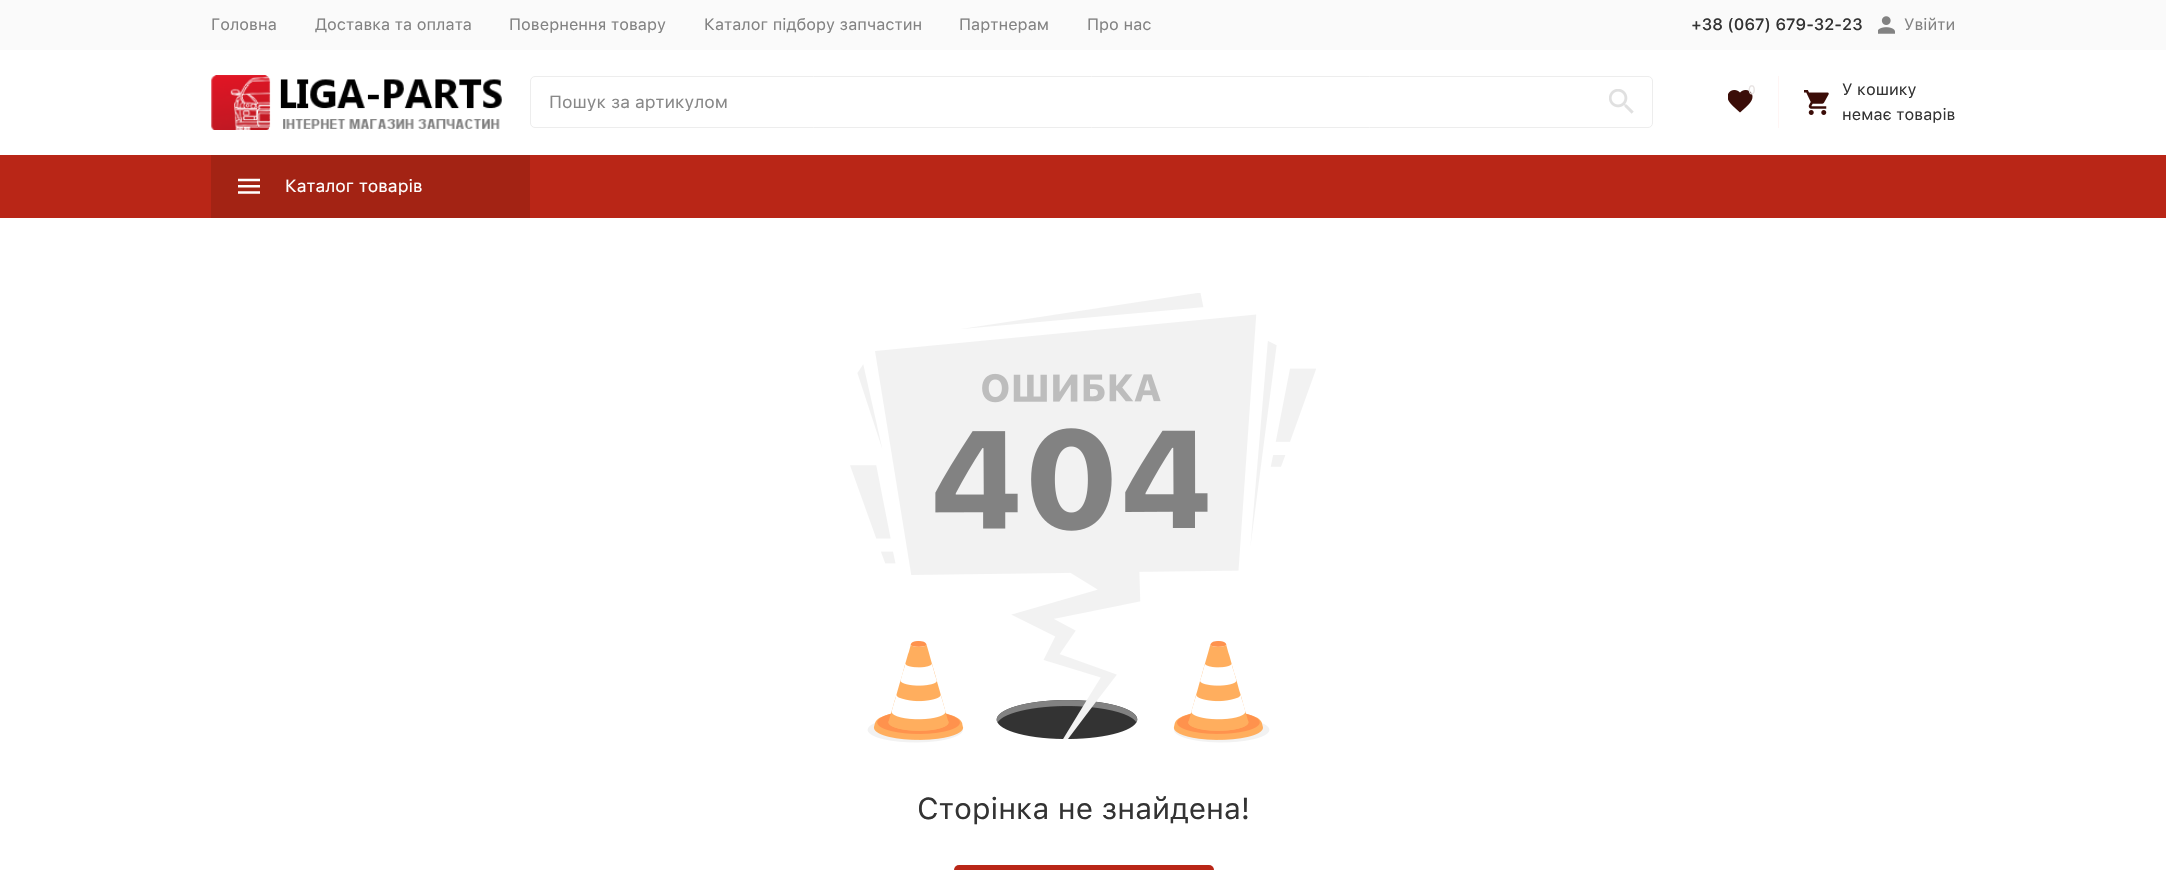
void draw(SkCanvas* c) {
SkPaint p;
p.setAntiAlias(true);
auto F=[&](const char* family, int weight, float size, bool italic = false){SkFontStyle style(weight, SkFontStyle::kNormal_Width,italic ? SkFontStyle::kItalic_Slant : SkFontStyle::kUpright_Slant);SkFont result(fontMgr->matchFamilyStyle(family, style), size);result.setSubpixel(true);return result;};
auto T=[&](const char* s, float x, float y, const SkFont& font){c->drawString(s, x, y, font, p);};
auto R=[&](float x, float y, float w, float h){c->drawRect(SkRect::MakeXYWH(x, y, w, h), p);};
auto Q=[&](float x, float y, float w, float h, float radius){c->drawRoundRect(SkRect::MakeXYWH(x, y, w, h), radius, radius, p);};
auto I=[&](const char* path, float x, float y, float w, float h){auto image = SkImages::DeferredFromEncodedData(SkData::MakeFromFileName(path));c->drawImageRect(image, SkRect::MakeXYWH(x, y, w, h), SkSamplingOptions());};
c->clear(0xffffffff);
p.setColor(0xfffafafa);
R(0,0,2166,50);
auto f1 = F("SF Pro Text",400,16.25);
p.setColor(0xff828282);
T("Головна",211,30,f1);
T("Доставка та оплата",315,30,f1);
T("Повернення товару",509,30,f1);
T("Каталог підбору запчастин",704,30,f1);
T("Партнерам",959,30,f1);
T("Про нас",1087,30,f1);
auto f2 = F("SF Pro Text",500,16.25);
p.setColor(0xff333333);
T("+38 (067) 679-32-23",1691,30,f2);
I("1.png",1878,16,17,18);
p.setColor(0xff828282);
T("Увійти",1904,30,f1);
I("2.png",211,75,291,55);
p.setStroke(true);
p.setStrokeWidth(1);
p.setColor(0xffededed);
c->drawRoundRect(SkRect::MakeXYWH(530.5,76.5,1122,51),4.5,4.5,p);
c->save();
c->clipRect(SkRect::MakeXYWH(549,91,1046,20));
auto f3 = F("SF Pro Text",400,17.5);
p.setStroke(false);
p.setColor(0xff888888);
T("Пошук за артикулом",549,108,f3);
c->restore();
I("3.png",1609,89,25,25);
I("4.png",1728,90,25,23);
auto f4 = F("SF Pro Text",400,12);
p.setColor(0xffe6e1e0);
T("0",1748,94,f4);
p.setColor(0xfffff5f4);
R(1778,76,1,52);
I("5.png",1804,90,25,25);
p.setColor(0xff333333);
T("У кошику",1842,95,f1);
T("немає товарів",1842,120,f1);
p.setColor(0xffb92617);
R(0,155,2166,63);
p.setColor(0xffa32314);
R(211,155,319,63);
I("6.png",238,178,22,16);
p.setColor(0xffffffff);
T("Каталог товарів",285,192,f3);
I("7.png",850,293,466,450);
auto f5 = F("SF Pro Text",400,30);
p.setColor(0xff333333);
T("Сторінка не знайдена!",917,819,f5);
p.setColor(0xffb92617);
Q(954,865,260,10,5);
}
